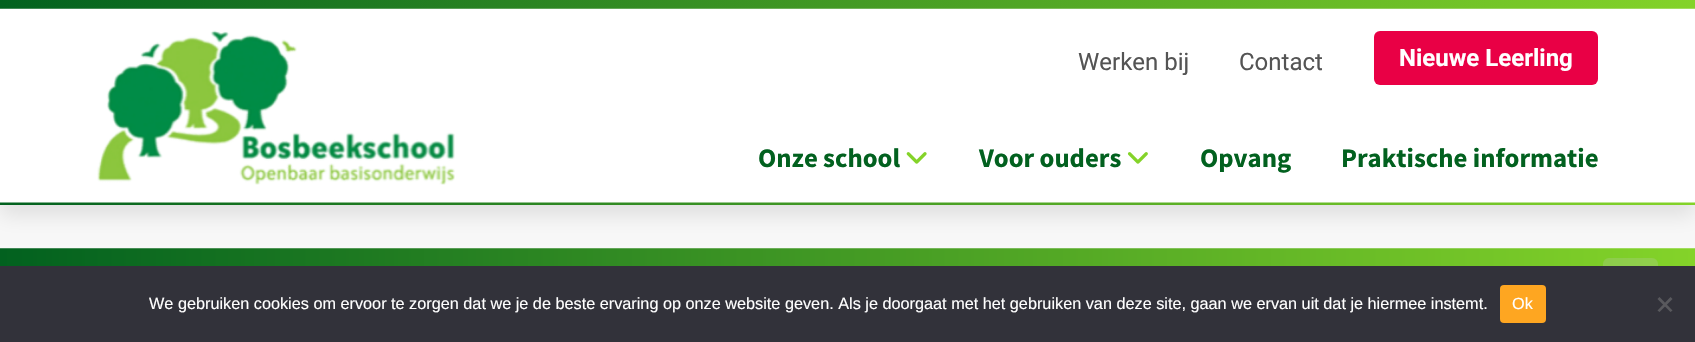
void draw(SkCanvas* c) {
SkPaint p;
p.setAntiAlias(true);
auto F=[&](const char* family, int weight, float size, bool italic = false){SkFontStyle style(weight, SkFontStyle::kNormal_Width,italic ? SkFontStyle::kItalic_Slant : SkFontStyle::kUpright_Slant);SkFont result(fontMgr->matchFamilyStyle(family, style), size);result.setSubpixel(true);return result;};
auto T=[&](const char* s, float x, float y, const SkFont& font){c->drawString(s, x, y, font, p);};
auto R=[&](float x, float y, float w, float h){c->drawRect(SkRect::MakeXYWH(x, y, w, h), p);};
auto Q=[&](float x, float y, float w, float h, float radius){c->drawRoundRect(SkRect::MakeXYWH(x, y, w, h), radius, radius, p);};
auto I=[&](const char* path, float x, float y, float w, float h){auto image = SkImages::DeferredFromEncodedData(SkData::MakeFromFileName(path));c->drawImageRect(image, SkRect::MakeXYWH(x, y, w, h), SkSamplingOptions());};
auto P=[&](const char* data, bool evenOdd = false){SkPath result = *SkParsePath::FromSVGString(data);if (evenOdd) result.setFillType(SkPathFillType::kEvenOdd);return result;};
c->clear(0xfff8f8f8);
p.setColor(0x1a000000);
p.setMaskFilter(SkMaskFilter::MakeBlur(kNormal_SkBlurStyle, 10));
c->drawRect(SkRect::MakeXYWH(0,10,1695,205),p);
p.setMaskFilter(nullptr);
p.setColor(0xffffffff);
R(0,8,1695,195);
I("1.png",0,0,1695,205);
I("2.png",97,30,358,155);
auto f1 = F("Roboto",400,24);
p.setColor(0xff545454);
T("Werken bij",1078,70,f1);
T("Contact",1239,70,f1);
p.setColor(0xffe90045);
Q(1374,31,224,54,6);
auto f2 = F("Roboto",700,24);
p.setColor(0xffffffff);
T("Nieuwe Leerling",1399,66,f2);
auto f3 = F("Source Sans Pro",700,26.75);
p.setColor(0xff02611f);
T("Onze school",758,167,f3);
I("3.png",906,152,21,12);
T("Voor ouders",979,167,f3);
I("4.png",1127,152,21,12);
T("Opvang",1200,167,f3);
T("Praktische informatie",1341,167,f3);
{
const SkColor colors[] = {0xff02611f,0xff84d329};
const float stops[] = {0,1};
const SkPoint ends[] = {{0,296}, {1695,296}};
p.setShader(SkGradientShader::MakeLinear(ends, colors, stops, 2, SkTileMode::kClamp));
p.setAlpha(255);
}
R(0,249,1695,17);
I("5.png",0,248,1695,1);
p.setShader(nullptr);
p.setColor(0x36cccccc);
Q(1603,258,55,55,6);
p.setColor(0xff32323a);
R(0,266,1695,76);
auto f4 = F("Liberation Sans",400,16.25);
p.setColor(0xffffffff);
T("We gebruiken cookies om ervoor te zorgen dat we je de beste ervaring op onze website geven. Als je doorgaat met het gebruiken van deze site, gaan we ervan uit dat je hiermee instemt.",149,309,f4);
p.setColor(0xfffea621);
Q(1500,285,46,38,4);
p.setColor(0xffffffff);
T("Ok",1512,309,f4);
p.setColor(0xff59595d);
c->drawPath(P("M1670.5 297l2 2l-13 13l-2-1.5z"),p);
c->drawPath(P("M1657.5 299l2-2l13 13.5l-2 1.5z"),p);
}
